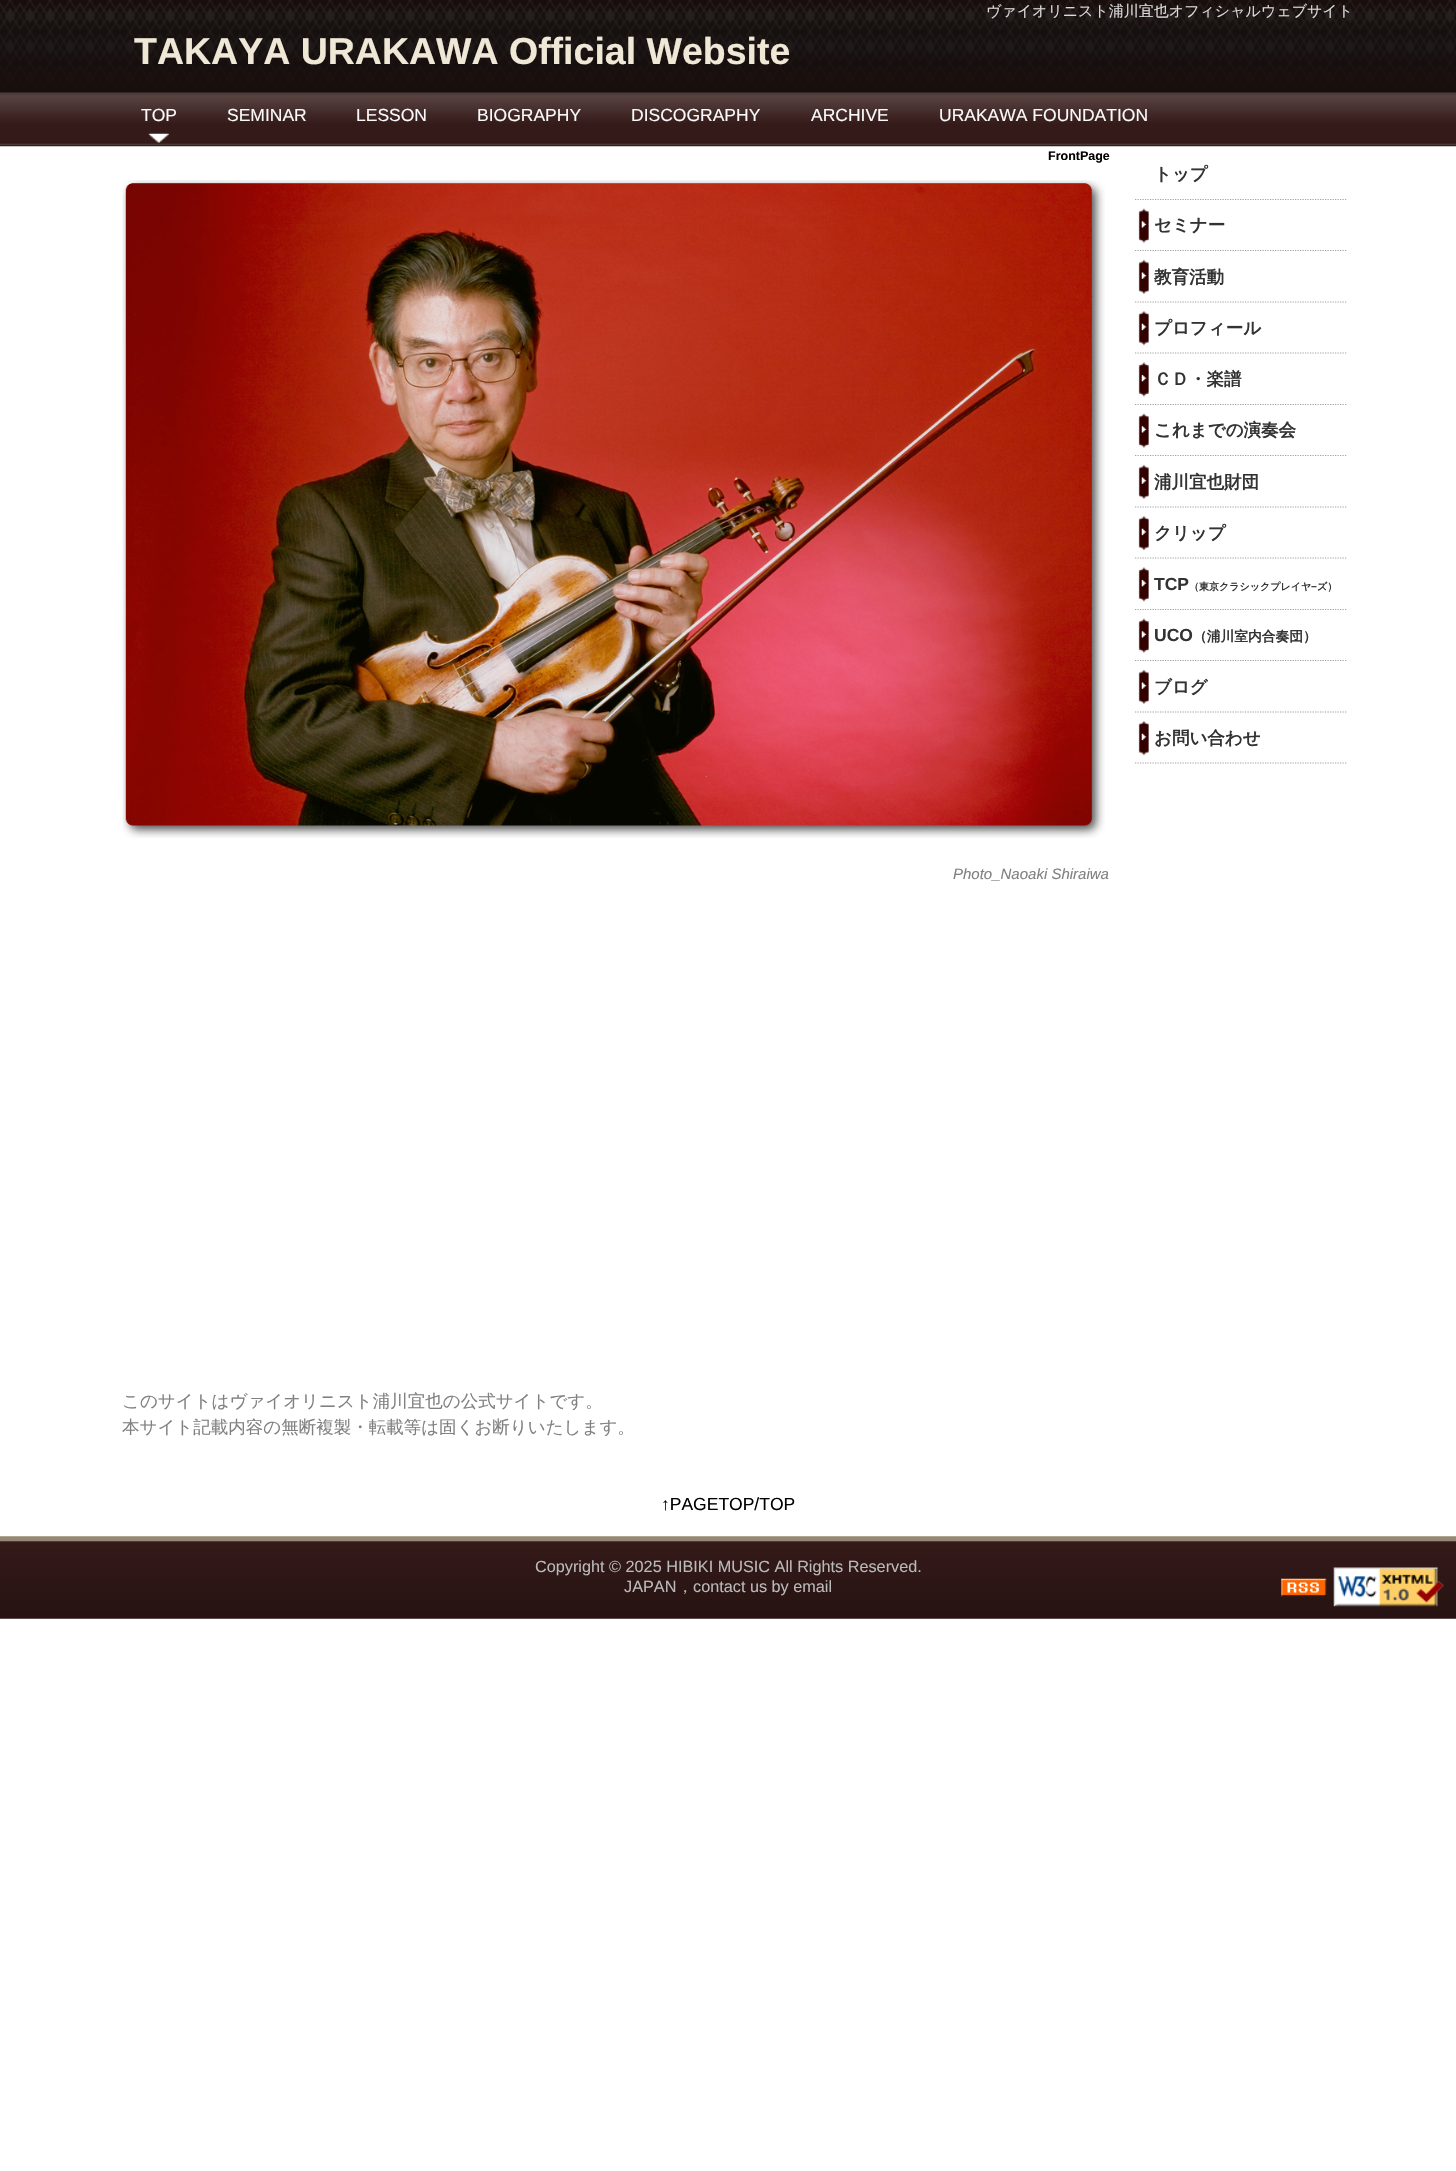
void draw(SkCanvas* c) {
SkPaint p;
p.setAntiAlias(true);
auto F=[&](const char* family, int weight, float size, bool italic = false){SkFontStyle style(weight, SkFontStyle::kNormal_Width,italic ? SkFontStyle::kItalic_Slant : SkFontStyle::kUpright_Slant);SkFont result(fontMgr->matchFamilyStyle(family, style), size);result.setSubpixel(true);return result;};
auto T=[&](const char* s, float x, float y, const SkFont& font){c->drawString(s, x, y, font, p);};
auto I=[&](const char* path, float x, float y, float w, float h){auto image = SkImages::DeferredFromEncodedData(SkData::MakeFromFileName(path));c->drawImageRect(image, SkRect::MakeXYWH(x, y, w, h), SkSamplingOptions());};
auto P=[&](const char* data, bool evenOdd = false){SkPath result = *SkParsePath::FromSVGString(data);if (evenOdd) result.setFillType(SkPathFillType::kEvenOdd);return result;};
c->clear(0xffffffff);
I("1.png",0,0,1456,147);
auto f1 = F("WenQuanYi Zen Hei",500,15);
p.setColor(0xffdbdbdb);
T("ヴァイオリニスト浦川宜也オフィシャルウェブサイト",986,16,f1);
auto f2 = F("Liberation Sans",700,37.5);
p.setColor(0xffefe8d7);
T("TAKAYA URAKAWA Official Website",134,64,f2);
I("2.png",148,133,21,10);
auto f3 = F("Liberation Sans",400,17.5);
p.setColor(0xfffafafa);
T("TOP",141,121,f3);
T("SEMINAR",227,121,f3);
T("LESSON",356,121,f3);
T("BIOGRAPHY",477,121,f3);
T("DISCOGRAPHY",631,121,f3);
T("ARCHIVE",811,121,f3);
T("URAKAWA FOUNDATION",939,121,f3);
auto f4 = F("Liberation Sans",700,12.5);
p.setColor(0xff000000);
T("FrontPage",1048,160,f4);
I("3.png",122,180,983,658);
auto f5 = F("Liberation Sans",400,15,true);
p.setColor(0xff808080);
T("Photo_Naoaki Shiraiwa",953,879,f5);
auto f6 = F("WenQuanYi Zen Hei",500,17.5);
T("このサイトはヴァイオリニスト浦川宜也の公式サイトです。",122,1407,f6);
T("本サイト記載内容の無断複製・転載等は固くお断りいたします。",122,1433,f6);
p.setStroke(true);
p.setStrokeWidth(1.2);
p.setColor(0xffa1a1a1);
p.setPathEffect(SkDashPathEffect::Make({{1.25f,1.25f}}, 0));
c->drawPath(P("M1135 199.5h212.5"),p);
p.setPathEffect(nullptr);
auto f7 = F("WenQuanYi Zen Hei",700,17.5);
p.setStroke(false);
p.setColor(0xff333333);
T("トップ",1154,180,f7);
I("4.png",1138,208,11,35);
p.setStroke(true);
p.setColor(0xffa1a1a1);
p.setPathEffect(SkDashPathEffect::Make({{1.25f,1.25f}}, 0));
c->drawPath(P("M1135 250.5h212.5"),p);
p.setPathEffect(nullptr);
p.setStroke(false);
p.setColor(0xff333333);
T("セミナー",1154,231,f7);
I("5.png",1138,259,11,35);
p.setStroke(true);
p.setColor(0xffa1a1a1);
p.setPathEffect(SkDashPathEffect::Make({{1.25f,1.25f}}, 0));
c->drawPath(P("M1135 302h212.5"),p);
p.setPathEffect(nullptr);
p.setStroke(false);
p.setColor(0xff333333);
T("教育活動",1154,283,f7);
I("6.png",1138,311,11,35);
p.setStroke(true);
p.setColor(0xffa1a1a1);
p.setPathEffect(SkDashPathEffect::Make({{1.25f,1.25f}}, 0));
c->drawPath(P("M1135 353h212.5"),p);
p.setPathEffect(nullptr);
p.setStroke(false);
p.setColor(0xff333333);
T("プロフィール",1154,334,f7);
I("7.png",1138,362,11,35);
p.setStroke(true);
p.setColor(0xffa1a1a1);
p.setPathEffect(SkDashPathEffect::Make({{1.25f,1.25f}}, 0));
c->drawPath(P("M1135 404.5h212.5"),p);
p.setPathEffect(nullptr);
p.setStroke(false);
p.setColor(0xff333333);
T("ＣＤ・楽譜",1154,385,f7);
I("4.png",1138,413,11,35);
p.setStroke(true);
p.setColor(0xffa1a1a1);
p.setPathEffect(SkDashPathEffect::Make({{1.25f,1.25f}}, 0));
c->drawPath(P("M1135 455.5h212.5"),p);
p.setPathEffect(nullptr);
p.setStroke(false);
p.setColor(0xff333333);
T("これまでの演奏会",1154,436,f7);
I("5.png",1138,464,11,35);
p.setStroke(true);
p.setColor(0xffa1a1a1);
p.setPathEffect(SkDashPathEffect::Make({{1.25f,1.25f}}, 0));
c->drawPath(P("M1135 507h212.5"),p);
p.setPathEffect(nullptr);
p.setStroke(false);
p.setColor(0xff333333);
T("浦川宜也財団",1154,488,f7);
I("6.png",1138,516,11,35);
p.setStroke(true);
p.setColor(0xffa1a1a1);
p.setPathEffect(SkDashPathEffect::Make({{1.25f,1.25f}}, 0));
c->drawPath(P("M1135 558h212.5"),p);
p.setPathEffect(nullptr);
p.setStroke(false);
p.setColor(0xff333333);
T("クリップ",1154,539,f7);
I("8.png",1138,567,11,35);
p.setStroke(true);
p.setColor(0xffa1a1a1);
p.setPathEffect(SkDashPathEffect::Make({{1.25f,1.25f}}, 0));
c->drawPath(P("M1135 609.5h212.5"),p);
p.setPathEffect(nullptr);
auto f8 = F("Liberation Sans",700,17.5);
p.setStroke(false);
p.setColor(0xff333333);
T("TCP",1154,590,f8);
auto f9 = F("WenQuanYi Zen Hei",700,10);
T("（東京クラシックプレイヤ",1189,590,f9);
auto f10 = F("Liberation Sans",700,10);
T("−",1311,590,f10);
T("ズ）",1317,590,f9);
I("4.png",1138,618,11,35);
p.setStroke(true);
p.setColor(0xffa1a1a1);
p.setPathEffect(SkDashPathEffect::Make({{1.25f,1.25f}}, 0));
c->drawPath(P("M1135 660.5h212.5"),p);
p.setPathEffect(nullptr);
p.setStroke(false);
p.setColor(0xff333333);
T("UCO",1154,641,f8);
auto f11 = F("WenQuanYi Zen Hei",700,13.75);
T("（浦川室内合奏団）",1193,641,f11);
I("5.png",1138,669,11,35);
p.setStroke(true);
p.setColor(0xffa1a1a1);
p.setPathEffect(SkDashPathEffect::Make({{1.25f,1.25f}}, 0));
c->drawPath(P("M1135 712h212.5"),p);
p.setPathEffect(nullptr);
p.setStroke(false);
p.setColor(0xff333333);
T("ブログ",1154,693,f7);
I("6.png",1138,721,11,35);
p.setStroke(true);
p.setColor(0xffa1a1a1);
p.setPathEffect(SkDashPathEffect::Make({{1.25f,1.25f}}, 0));
c->drawPath(P("M1135 763h212.5"),p);
p.setPathEffect(nullptr);
p.setStroke(false);
p.setColor(0xff333333);
T("お問い合わせ",1154,744,f7);
p.setColor(0xff000000);
T("↑PAGETOP/TOP",661,1510,f3);
I("9.png",0,1536,1456,83);
auto f12 = F("Liberation Sans",400,16.25);
p.setColor(0xffbababa);
T("Copyright © 2025 HIBIKI MUSIC All Rights Reserved.",535,1572,f12);
T("JAPAN",624,1592,f12);
auto f13 = F("WenQuanYi Zen Hei",500,16.25);
T("，",677,1592,f13);
T("contact us by email",693,1592,f12);
I("10.png",1281,1578,46,19);
I("11.png",1333,1567,111,40);
}
